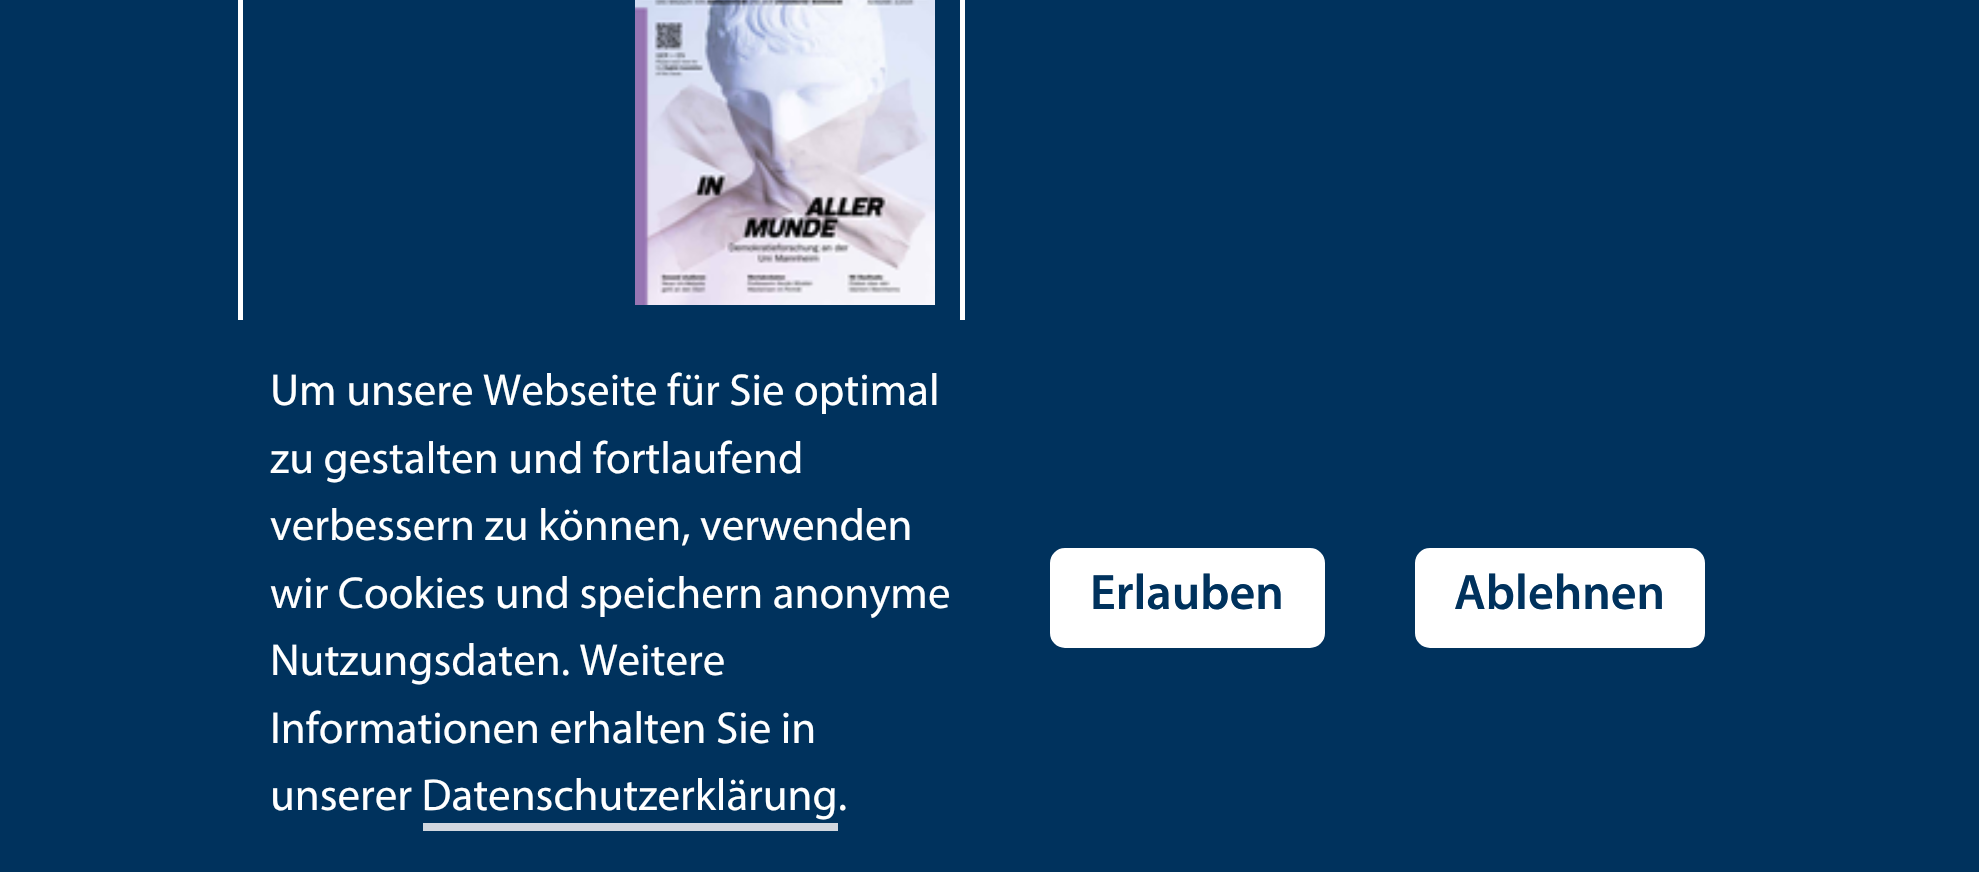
void draw(SkCanvas* c) {
SkPaint p;
p.setAntiAlias(true);
auto F=[&](const char* family, int weight, float size, bool italic = false){SkFontStyle style(weight, SkFontStyle::kNormal_Width,italic ? SkFontStyle::kItalic_Slant : SkFontStyle::kUpright_Slant);SkFont result(fontMgr->matchFamilyStyle(family, style), size);result.setSubpixel(true);return result;};
auto T=[&](const char* s, float x, float y, const SkFont& font){c->drawString(s, x, y, font, p);};
auto R=[&](float x, float y, float w, float h){c->drawRect(SkRect::MakeXYWH(x, y, w, h), p);};
auto I=[&](const char* path, float x, float y, float w, float h){auto image = SkImages::DeferredFromEncodedData(SkData::MakeFromFileName(path));c->drawImageRect(image, SkRect::MakeXYWH(x, y, w, h), SkSamplingOptions());};
c->clear(0xff00325d);
p.setStroke(true);
p.setStrokeWidth(5);
p.setColor(0xffffffff);
c->drawRect(SkRect::MakeXYWH(240.5,-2.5,722,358),p);
I("1.png",635,0,300,305);
p.setStroke(false);
p.setColor(0xff00325d);
R(238,320,727,38);
auto f1 = F("myriad",400,45);
p.setColor(0xffffffff);
T("Um unsere Webseite für Sie optimal",270,405,f1);
T("zu gestalten und fortlaufend",270,473,f1);
T("verbessern zu können, verwenden",270,540,f1);
T("wir Cookies und speichern anonyme",270,608,f1);
T("Nutzungsdaten. Weitere",270,675,f1);
T("Informationen erhalten Sie in",270,743,f1);
T("unserer Datenschutzerklärung.",270,810,f1);
p.setColor(0xffd1d7df);
R(423,823,415,8);
p.setColor(0xffffffff);
c->drawRoundRect(SkRect::MakeXYWH(1047.5,545.5,280,105),17.5,17.5,p);
p.setStroke(true);
p.setColor(0xff00325d);
c->drawRoundRect(SkRect::MakeXYWH(1047.5,545.5,280,105),17.5,17.5,p);
auto f2 = F("Myriad",600,50);
p.setStroke(false);
T("Erlauben",1090,609,f2);
p.setColor(0xffffffff);
c->drawRoundRect(SkRect::MakeXYWH(1412.5,545.5,295,105),17.5,17.5,p);
p.setStroke(true);
p.setColor(0xff00325d);
c->drawRoundRect(SkRect::MakeXYWH(1412.5,545.5,295,105),17.5,17.5,p);
p.setStroke(false);
T("Ablehnen",1454,609,f2);
}
